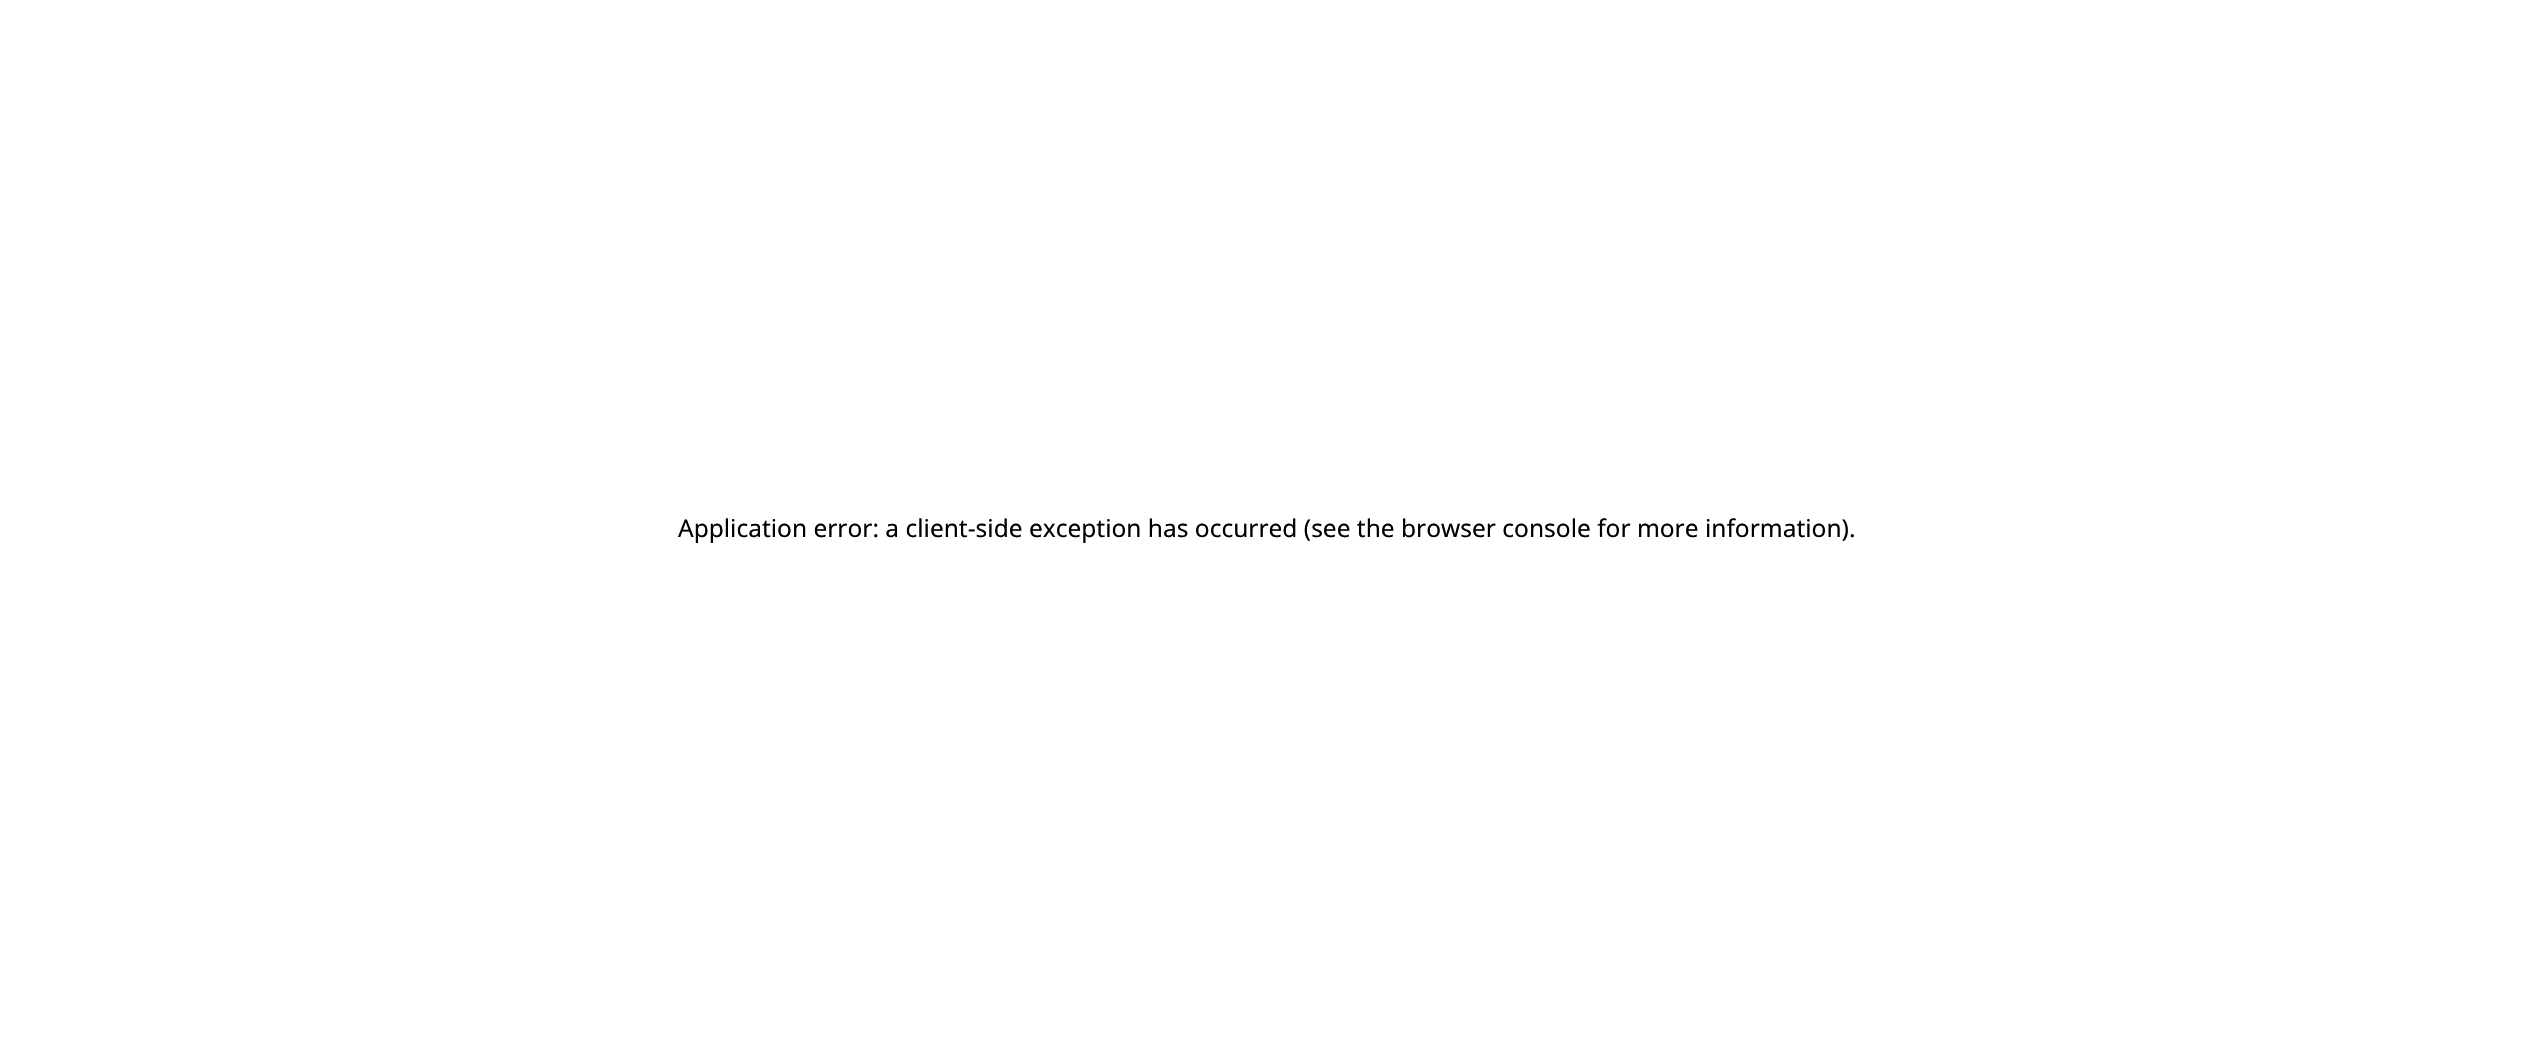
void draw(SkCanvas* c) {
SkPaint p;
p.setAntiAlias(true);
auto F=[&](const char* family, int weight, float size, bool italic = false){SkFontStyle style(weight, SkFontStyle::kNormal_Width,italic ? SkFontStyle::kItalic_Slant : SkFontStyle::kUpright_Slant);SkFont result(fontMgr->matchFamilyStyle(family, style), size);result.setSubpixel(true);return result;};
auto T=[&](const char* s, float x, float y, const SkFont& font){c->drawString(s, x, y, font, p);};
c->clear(0xffffffff);
auto f1 = F("Noto Sans",400,24.5);
p.setColor(0xff000000);
T("Application error: a client-side exception has occurred (see the browser console for more information).",678,537,f1);
}
